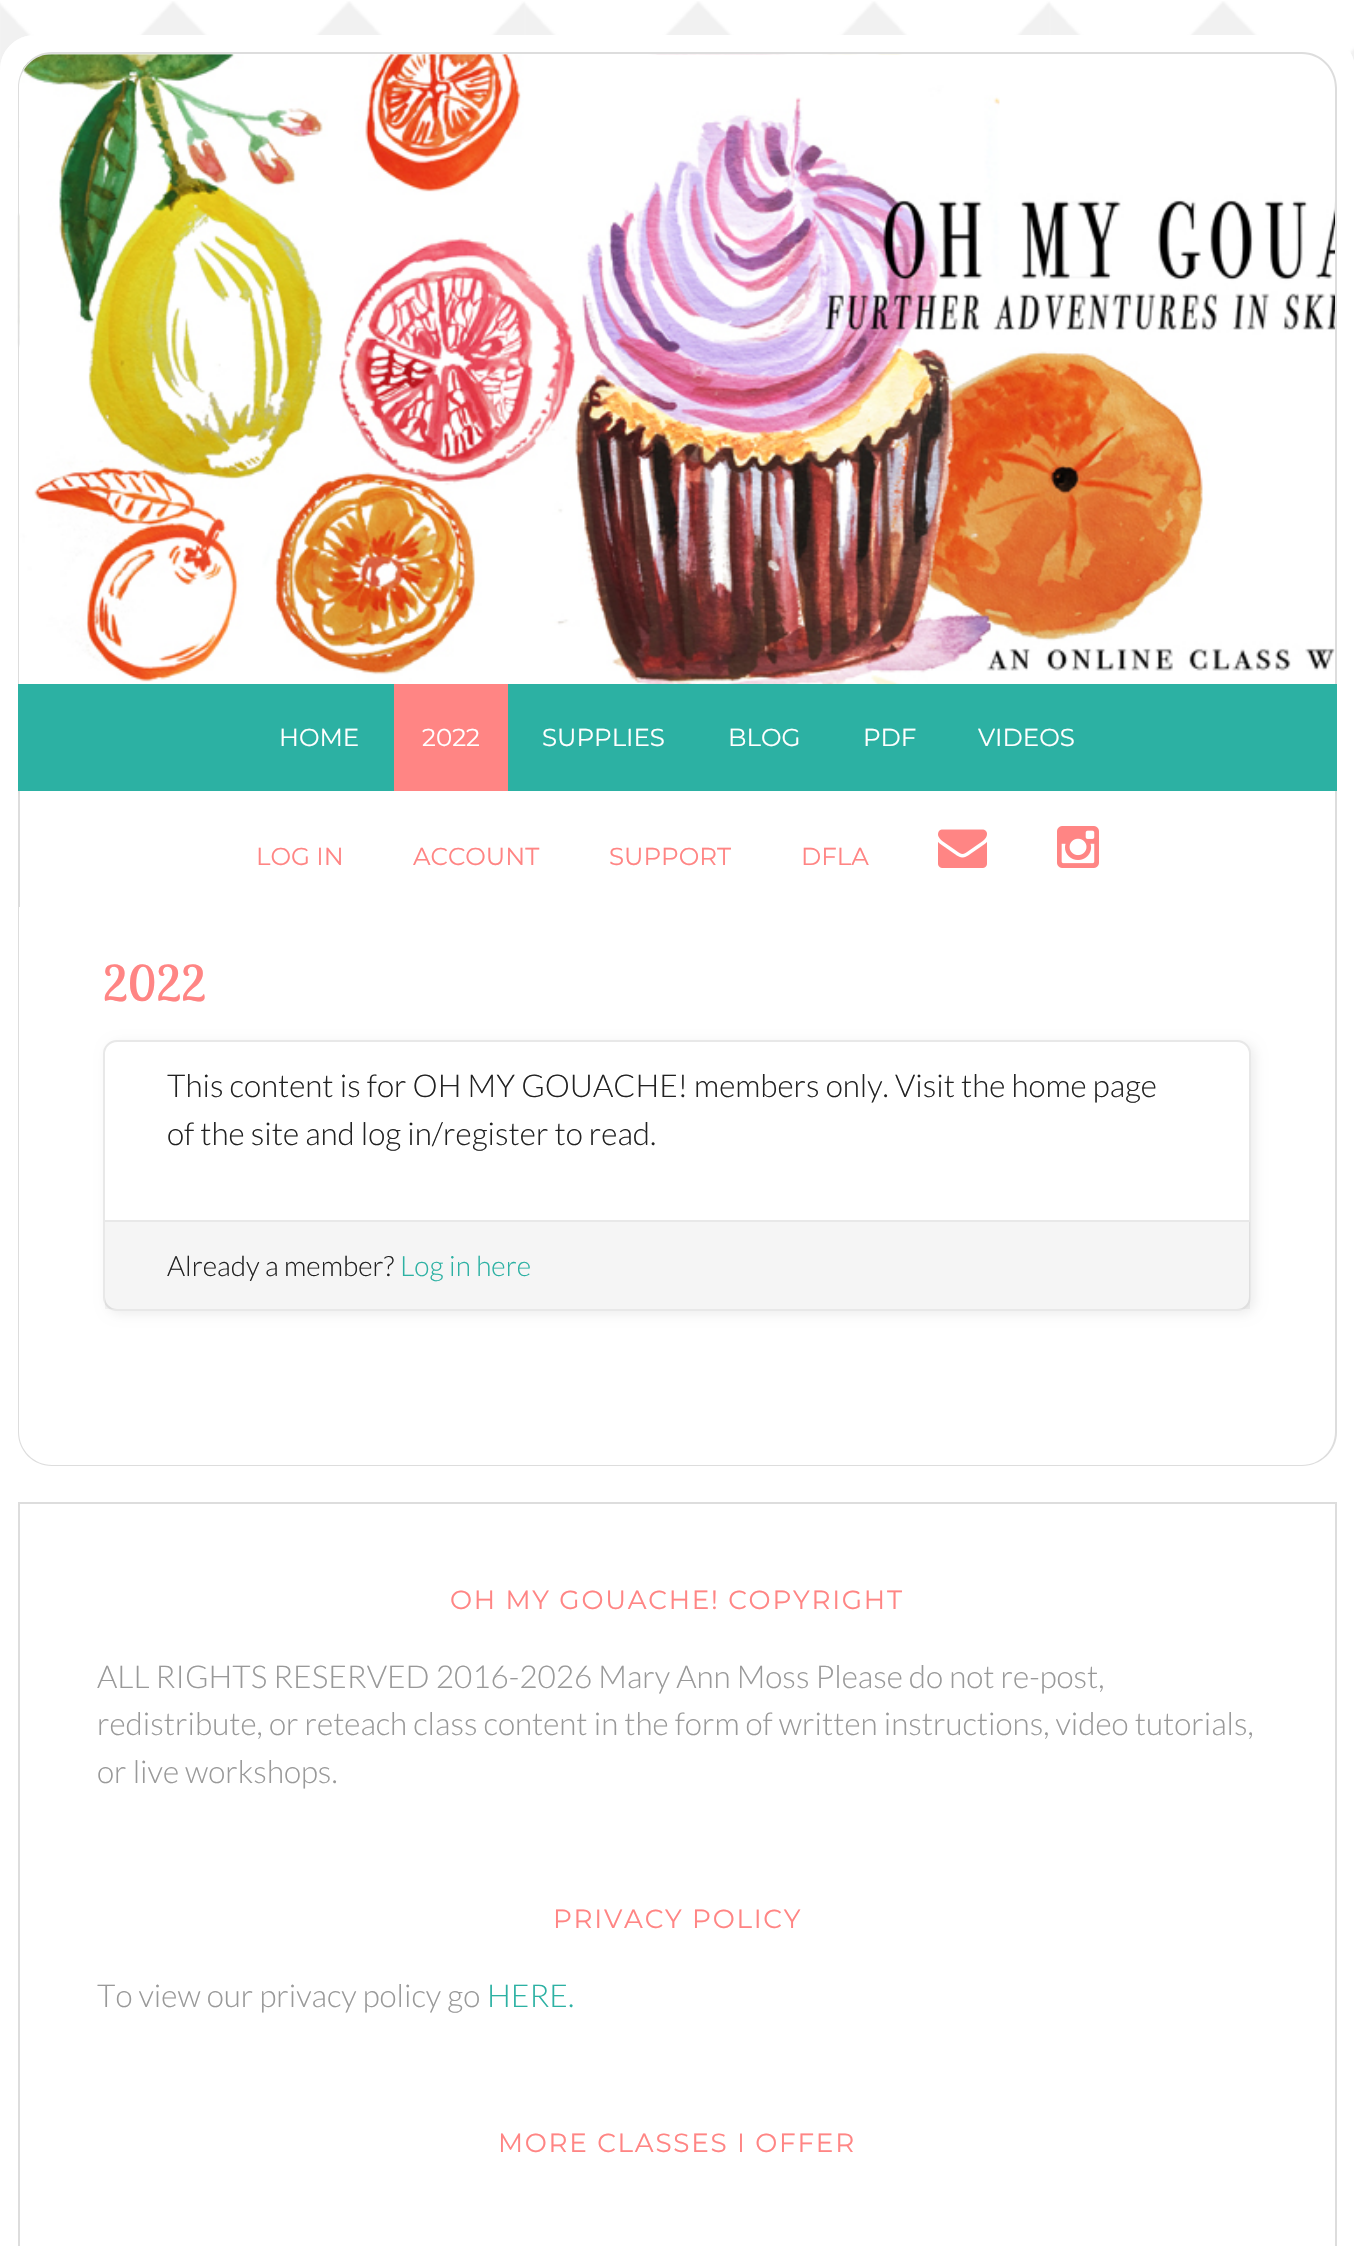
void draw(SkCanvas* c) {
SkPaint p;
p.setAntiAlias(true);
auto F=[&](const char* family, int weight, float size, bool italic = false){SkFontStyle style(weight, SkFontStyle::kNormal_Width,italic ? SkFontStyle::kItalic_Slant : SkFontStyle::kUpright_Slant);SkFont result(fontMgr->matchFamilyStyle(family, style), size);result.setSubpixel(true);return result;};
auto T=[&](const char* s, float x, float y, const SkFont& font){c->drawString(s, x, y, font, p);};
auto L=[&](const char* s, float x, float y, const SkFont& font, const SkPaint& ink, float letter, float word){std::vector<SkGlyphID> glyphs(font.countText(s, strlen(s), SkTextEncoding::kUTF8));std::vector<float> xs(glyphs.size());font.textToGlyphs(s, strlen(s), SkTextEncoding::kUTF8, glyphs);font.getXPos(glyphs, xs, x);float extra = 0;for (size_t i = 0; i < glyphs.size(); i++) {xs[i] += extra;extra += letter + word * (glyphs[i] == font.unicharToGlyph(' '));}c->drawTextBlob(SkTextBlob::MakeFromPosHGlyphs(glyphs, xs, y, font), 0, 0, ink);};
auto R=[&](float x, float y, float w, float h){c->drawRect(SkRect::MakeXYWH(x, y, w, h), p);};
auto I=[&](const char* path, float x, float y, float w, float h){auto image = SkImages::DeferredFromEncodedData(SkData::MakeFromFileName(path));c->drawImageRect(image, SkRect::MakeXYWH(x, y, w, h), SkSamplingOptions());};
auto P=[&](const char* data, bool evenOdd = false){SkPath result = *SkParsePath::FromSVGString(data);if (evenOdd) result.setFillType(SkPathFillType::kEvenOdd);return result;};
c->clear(0xffffffff);
I("1.png",0,1,1354,69);
p.setColor(0xffffffff);
c->drawPath(P("M35 35h1285c19.5 0 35 15.5 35 35v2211h-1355v-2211c0-19.5 15.5-35 35-35z"),p);
I("2.png",18,77,1319,11);
p.setStroke(true);
p.setStrokeWidth(18);
c->drawPath(P("M35 44h1285c14.5 0 26 11.5 26 26v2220h-1337v-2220c0-14.5 11.5-26 26-26z"),p);
I("3.png",17,52,1320,632);
p.setStroke(false);
p.setColor(0xffdddddd);
c->drawPath(P("M52 52h1250c19 0 35 16 35 36v596h-1319v-596c0-20 15-36 34-36zm0 2h1250c18 0 33 15 33 34v596h-1316v-596c0-19 15-34 33-34z",true),p);
p.setColor(0xff2cb1a3);
R(18,684,1319,107);
auto f1 = F("Montserrat",100,24.5);
p.setColor(0xffffffff);
T("HOME",279,746,f1);
p.setColor(0xffff8584);
R(394,684,114,107);
p.setColor(0xffffffff);
T("2022",422,746,f1);
T("SUPPLIES",542,746,f1);
T("BLOG",728,746,f1);
T("PDF",863,746,f1);
T("VIDEOS",978,746,f1);
p.setColor(0xffdddddd);
R(1335,791,2,116);
R(18,791,2,116);
p.setColor(0xffff8584);
T("LOG IN",256,865,f1);
T("ACCOUNT",413,865,f1);
T("SUPPORT",609,865,f1);
T("DFLA",801,865,f1);
I("4.png",938,829,49,39);
I("5.png",1057,826,42,42);
p.setColor(0xffdddddd);
c->drawPath(P("M18 906h1319v526c0 19-16 34-35 34h-1250c-19 0-34-15-34-34zm1 0h1316v526c0 18-15 33-33 33h-1250c-18 0-33-15-33-33z",true),p);
auto f2 = F("Lobster Two",400,49);
p.setColor(0xffff8584);
T("2022",103,1001,f2);
p.setColor(0x12000000);
p.setMaskFilter(SkMaskFilter::MakeBlur(kNormal_SkBlurStyle, 6));
c->drawRoundRect(SkRect::MakeXYWH(107,1043,1148,271),14,14,p);
p.setMaskFilter(nullptr);
p.setColor(0xffffffff);
c->drawRoundRect(SkRect::MakeXYWH(104,1041,1146,269),13,13,p);
p.setStroke(true);
p.setStrokeWidth(2);
p.setColor(0xffe8e8e8);
c->drawRoundRect(SkRect::MakeXYWH(104,1041,1146,269),13,13,p);
auto f3 = F("Lato",300,31.5);
p.setStroke(false);
p.setColor(0xff222222);
T("This content is for OH MY GOUACHE! members only. Visit the home page",167,1097,f3);
T("of the site and log in/register to read.",167,1145,f3);
p.setColor(0x0a000000);
R(105,1222,1145,87);
p.setColor(0xffe8e8e8);
R(105,1220,1145,2);
auto f4 = F("Lato",300,28);
p.setColor(0xff222222);
T("Already a member?",167,1276,f4);
p.setColor(0xff2cb1a3);
T("Log in here",400,1276,f4);
p.setStroke(true);
p.setColor(0xffdddddd);
c->drawRect(SkRect::MakeXYWH(19,1503,1317,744),p);
auto f5 = F("Montserrat",100,26.25);
p.setStroke(false);
p.setColor(0xffff8584);
L("OH MY GOUACHE! COPYRIGHT",450,1609,f5,p,1.75,0);
p.setColor(0xff999999);
T("ALL RIGHTS RESERVED 2016-2026 Mary Ann Moss Please do not re-post,",97,1688,f3);
T("redistribute, or reteach class content in the form of written instructions, video tutorials,",97,1735,f3);
T("or live workshops.",97,1783,f3);
p.setColor(0xffff8584);
L("PRIVACY POLICY",553,1928,f5,p,1.75,0);
p.setColor(0xff999999);
T("To view our privacy policy go",97,2007,f3);
p.setColor(0xff2cb1a3);
T("HERE.",487,2007,f3);
p.setColor(0xffff8584);
L("MORE CLASSES I OFFER",498,2152,f5,p,1.75,0);
}
